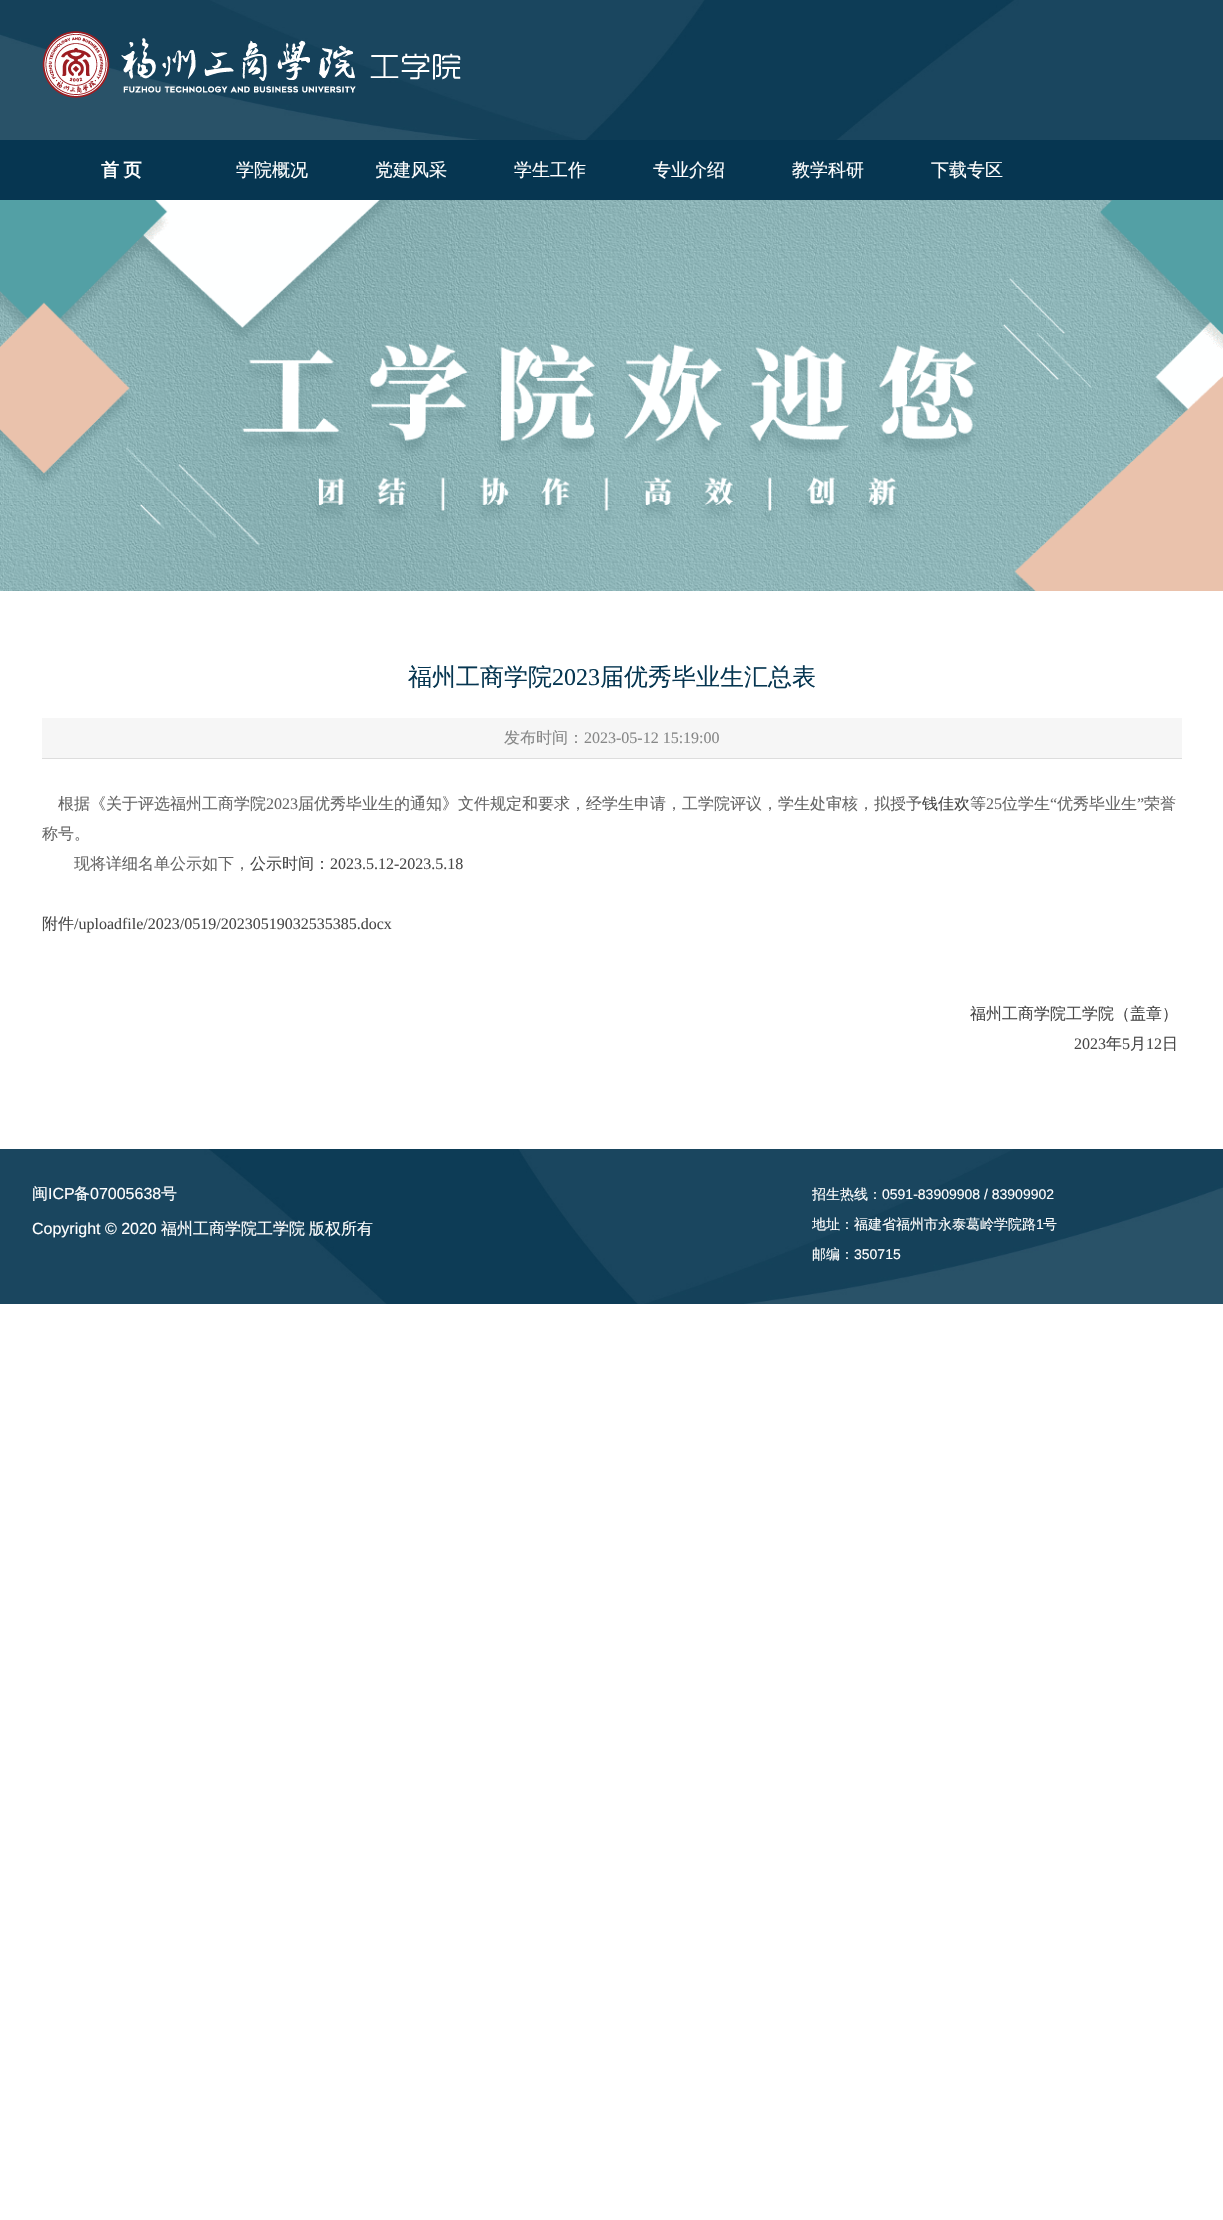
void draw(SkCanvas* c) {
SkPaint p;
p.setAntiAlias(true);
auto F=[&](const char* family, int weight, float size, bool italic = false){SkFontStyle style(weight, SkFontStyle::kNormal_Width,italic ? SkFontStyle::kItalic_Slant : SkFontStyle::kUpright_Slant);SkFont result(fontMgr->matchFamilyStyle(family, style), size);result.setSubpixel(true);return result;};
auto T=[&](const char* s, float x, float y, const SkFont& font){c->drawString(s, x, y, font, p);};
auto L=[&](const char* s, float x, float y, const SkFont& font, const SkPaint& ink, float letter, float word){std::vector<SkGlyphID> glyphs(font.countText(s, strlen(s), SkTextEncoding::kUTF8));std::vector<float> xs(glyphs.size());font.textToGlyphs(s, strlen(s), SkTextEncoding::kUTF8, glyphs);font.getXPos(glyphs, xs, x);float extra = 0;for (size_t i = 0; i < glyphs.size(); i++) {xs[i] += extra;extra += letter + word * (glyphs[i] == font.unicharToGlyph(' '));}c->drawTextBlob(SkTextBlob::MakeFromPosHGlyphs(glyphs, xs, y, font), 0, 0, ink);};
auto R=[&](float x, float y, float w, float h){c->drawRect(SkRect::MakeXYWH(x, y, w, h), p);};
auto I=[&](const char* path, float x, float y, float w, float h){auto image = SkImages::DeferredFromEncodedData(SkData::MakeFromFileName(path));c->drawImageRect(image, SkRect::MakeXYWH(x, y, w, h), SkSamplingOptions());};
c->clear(0xffffffff);
I("1.png",0,0,1223,140);
I("2.png",42,31,419,67);
p.setColor(0xff063651);
R(0,140,1223,60);
auto f1 = F("WenQuanYi Zen Hei",700,18);
p.setColor(0xffffffff);
L("首 页",101,176,f1,p,0,-1);
auto f2 = F("WenQuanYi Zen Hei",500,18);
T("学院概况",236,176,f2);
T("党建风采",375,176,f2);
T("学生工作",514,176,f2);
T("专业介绍",653,176,f2);
T("教学科研",792,176,f2);
T("下载专区",931,176,f2);
I("3.png",0,200,1223,391);
auto f3 = F("WenQuanYi Zen Hei",500,24);
p.setColor(0xff063651);
T("福州工商学院",408,685,f3);
auto f4 = F("Liberation Serif",400,24);
T("2023",552,685,f4);
T("届优秀毕业生汇总表",600,685,f3);
p.setColor(0xfff6f6f6);
R(42,718,1140,40);
p.setColor(0xffdddddd);
R(42,758,1140,1);
auto f5 = F("WenQuanYi Zen Hei",500,16);
p.setColor(0xff868787);
T("发布时间：",504,743,f5);
auto f6 = F("Liberation Serif",400,16);
T("2023-05-12 15:19:00",584,743,f6);
p.setColor(0xff666666);
T("根据《关于评选福州工商学院",58,809,f5);
T("2023",266,809,f6);
T("届优秀毕业生的通知》文件规定和要求，经学生申请，工学院评议，学生处审核，拟授予",298,809,f5);
p.setColor(0xff484848);
T("钱佳欢",922,809,f5);
p.setColor(0xff666666);
T("等",970,809,f5);
T("25",986,809,f6);
T("位学生",1002,809,f5);
T("“",1050,809,f6);
T("优秀毕业生",1057,809,f5);
T("”",1137,809,f6);
T("荣誉",1144,809,f5);
T("称号。",42,839,f5);
T("现将详细名单公示如下，",74,869,f5);
p.setColor(0xff484848);
T("公示时间：",250,869,f5);
T("2023.5.12-2023.5.18",330,869,f6);
T("附件",42,929,f5);
T("/uploadfile/2023/0519/20230519032535385.docx",74,929,f6);
T("福州工商学院工学院（盖章）",970,1019,f5);
T("2023",1074,1049,f6);
T("年",1106,1049,f5);
T("5",1122,1049,f6);
T("月",1130,1049,f5);
T("12",1146,1049,f6);
T("日",1162,1049,f5);
I("4.png",0,1149,1223,155);
p.setColor(0xffffffff);
T("闽",32,1199,f5);
auto f7 = F("Liberation Sans",400,16);
T("ICP",48,1199,f7);
T("备",74,1199,f5);
T("07005638",90,1199,f7);
T("号",161,1199,f5);
T("Copyright © 2020",32,1234,f7);
T("福州工商学院工学院",161,1234,f5);
T("版权所有",309,1234,f5);
auto f8 = F("WenQuanYi Zen Hei",500,14);
T("招生热线：",812,1199,f8);
auto f9 = F("Liberation Sans",400,14);
T("0591-83909908 / 83909902",882,1199,f9);
T("地址：福建省福州市永泰葛岭学院路",812,1229,f8);
T("1",1036,1229,f9);
T("号",1043,1229,f8);
T("邮编：",812,1259,f8);
T("350715",854,1259,f9);
}
